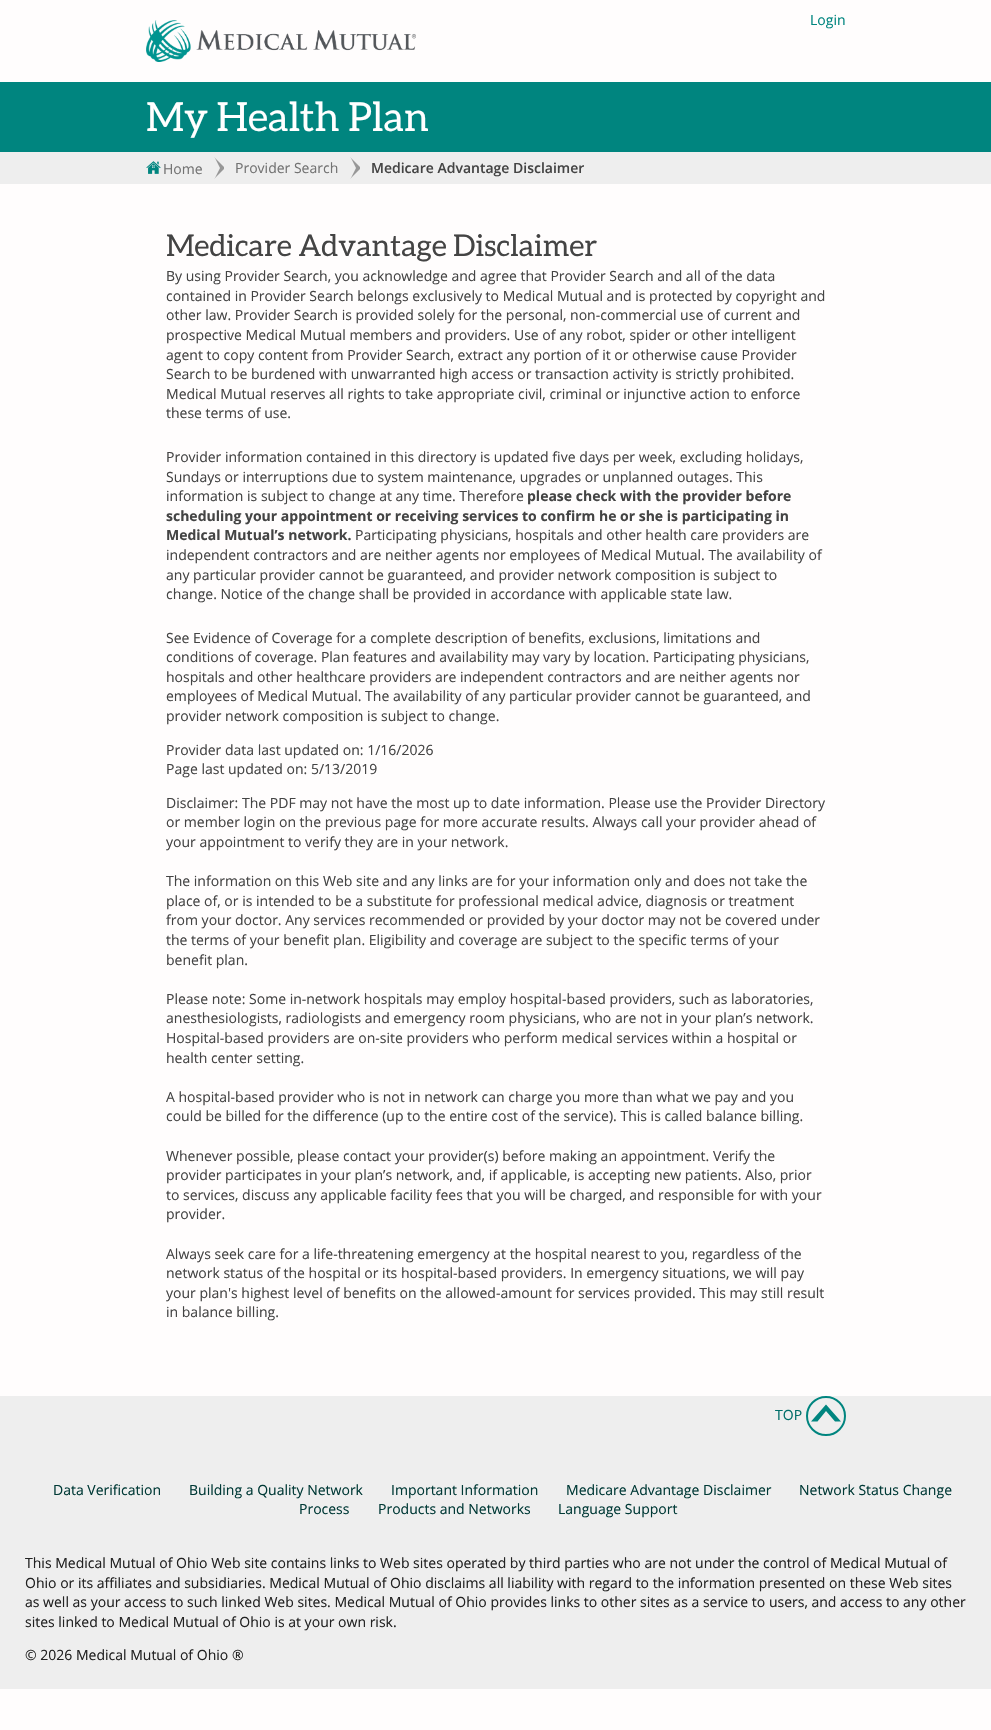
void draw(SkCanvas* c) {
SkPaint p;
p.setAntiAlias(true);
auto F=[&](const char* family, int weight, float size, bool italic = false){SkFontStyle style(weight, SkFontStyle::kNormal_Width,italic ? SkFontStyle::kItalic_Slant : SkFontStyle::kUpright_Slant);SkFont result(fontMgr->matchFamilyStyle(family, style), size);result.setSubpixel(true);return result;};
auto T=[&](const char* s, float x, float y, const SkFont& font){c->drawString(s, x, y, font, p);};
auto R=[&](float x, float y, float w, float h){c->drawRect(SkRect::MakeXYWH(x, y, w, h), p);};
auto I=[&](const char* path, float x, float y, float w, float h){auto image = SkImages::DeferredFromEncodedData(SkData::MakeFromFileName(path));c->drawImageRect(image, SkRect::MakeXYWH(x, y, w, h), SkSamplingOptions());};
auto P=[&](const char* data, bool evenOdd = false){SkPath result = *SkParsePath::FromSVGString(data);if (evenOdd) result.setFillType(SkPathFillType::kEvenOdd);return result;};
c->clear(0xfffffdfd);
I("1.png",146,20,270,42);
auto f1 = F("Open Sans",400,14);
p.setColor(0xff00857f);
T("Login",810,25,f1);
R(0,82,991,70);
auto f2 = F("Aleo",400,40);
p.setColor(0xffffffff);
T("My Health Plan",146,131,f2);
p.setColor(0xffeeeeee);
R(0,152,991,32);
p.setColor(0xff979797);
R(214,157,10,22);
p.setColor(0xffeeeeee);
c->drawPath(P("M212 184v-32l8 16z"),p);
c->drawPath(P("M209 152h16v16zm16 32h-16l16-16z"),p);
I("2.png",146,161,15,13);
p.setColor(0xff737373);
T("Home",163,174,f1);
p.setColor(0xff979797);
R(350,157,10,22);
p.setColor(0xffeeeeee);
c->drawPath(P("M348 184v-32l8 16z"),p);
c->drawPath(P("M345 152h16v16zm16 32h-16l16-16z"),p);
p.setColor(0xff737373);
T("Provider Search",235,173,f1);
auto f3 = F("Open Sans",600,14);
p.setColor(0xff444444);
T("Medicare Advantage Disclaimer",371,173,f3);
auto f4 = F("Aleo",400,30);
T("Medicare Advantage Disclaimer",166,256,f4);
T("By using Provider Search, you acknowledge and agree that Provider Search and all of the data",166,281,f1);
T("contained in Provider Search belongs exclusively to Medical Mutual and is protected by copyright and",166,301,f1);
T("other law. Provider Search is provided solely for the personal, non-commercial use of current and",166,320,f1);
T("prospective Medical Mutual members and providers. Use of any robot, spider or other intelligent",166,340,f1);
T("agent to copy content from Provider Search, extract any portion of it or otherwise cause Provider",166,360,f1);
T("Search to be burdened with unwarranted high access or transaction activity is strictly prohibited.",166,379,f1);
T("Medical Mutual reserves all rights to take appropriate civil, criminal or injunctive action to enforce",166,399,f1);
T("these terms of use.",166,418,f1);
T("Provider information contained in this directory is updated five days per week, excluding holidays,",166,462,f1);
T("Sundays or interruptions due to system maintenance, upgrades or unplanned outages. This",166,482,f1);
T("information is subject to change at any time. Therefore",166,501,f1);
auto f5 = F("Open Sans",700,14);
T("please check with the provider before",527,501,f5);
T("scheduling your appointment or receiving services to confirm he or she is participating in",166,521,f5);
T("Medical Mutual’s network.",166,540,f5);
T("Participating physicians, hospitals and other health care providers are",355,540,f1);
T("independent contractors and are neither agents nor employees of Medical Mutual. The availability of",166,560,f1);
T("any particular provider cannot be guaranteed, and provider network composition is subject to",166,580,f1);
T("change. Notice of the change shall be provided in accordance with applicable state law.",166,599,f1);
T("See Evidence of Coverage for a complete description of benefits, exclusions, limitations and",166,643,f1);
T("conditions of coverage. Plan features and availability may vary by location. Participating physicians,",166,662,f1);
T("hospitals and other healthcare providers are independent contractors and are neither agents nor",166,682,f1);
T("employees of Medical Mutual. The availability of any particular provider cannot be guaranteed, and",166,701,f1);
T("provider network composition is subject to change.",166,721,f1);
T("Provider data last updated on: 1/16/2026",166,755,f1);
T("Page last updated on: 5/13/2019",166,774,f1);
T("Disclaimer: The PDF may not have the most up to date information. Please use the Provider Directory",166,808,f1);
T("or member login on the previous page for more accurate results. Always call your provider ahead of",166,827,f1);
T("your appointment to verify they are in your network.",166,847,f1);
T("The information on this Web site and any links are for your information only and does not take the",166,886,f1);
T("place of, or is intended to be a substitute for professional medical advice, diagnosis or treatment",166,906,f1);
T("from your doctor. Any services recommended or provided by your doctor may not be covered under",166,925,f1);
T("the terms of your benefit plan. Eligibility and coverage are subject to the specific terms of your",166,945,f1);
T("benefit plan.",166,965,f1);
T("Please note: Some in-network hospitals may employ hospital-based providers, such as laboratories,",166,1004,f1);
T("anesthesiologists, radiologists and emergency room physicians, who are not in your plan’s network.",166,1023,f1);
T("Hospital-based providers are on-site providers who perform medical services within a hospital or",166,1043,f1);
T("health center setting.",166,1063,f1);
T("A hospital-based provider who is not in network can charge you more than what we pay and you",166,1102,f1);
T("could be billed for the difference (up to the entire cost of the service). This is called balance billing.",166,1121,f1);
T("Whenever possible, please contact your provider(s) before making an appointment. Verify the",166,1161,f1);
T("provider participates in your plan’s network, and, if applicable, is accepting new patients. Also, prior",166,1180,f1);
T("to services, discuss any applicable facility fees that you will be charged, and responsible for with your",166,1200,f1);
T("provider.",166,1219,f1);
T("Always seek care for a life-threatening emergency at the hospital nearest to you, regardless of the",166,1259,f1);
T("network status of the hospital or its hospital-based providers. In emergency situations, we will pay",166,1278,f1);
T("your plan's highest level of benefits on the allowed-amount for services provided. This may still result",166,1298,f1);
T("in balance billing.",166,1317,f1);
p.setColor(0xffeeeeee);
R(0,1396,991,293);
p.setColor(0xff016e69);
T("TOP",775,1420,f1);
p.setStroke(true);
p.setStrokeWidth(2);
p.setColor(0xff00857f);
c->drawCircle(826,1416,19,p);
p.setStroke(false);
c->drawPath(P("M811 1421.5l15-17l15 17h-6l-9-10.5l-8.5 10.5z"),p);
p.setColor(0xff003936);
T("Data Verification",53,1495,f1);
T("Building a Quality Network",189,1495,f1);
T("Important Information",391,1495,f1);
T("Medicare Advantage Disclaimer",566,1495,f1);
T("Network Status Change",799,1495,f1);
T("Process",299,1514,f1);
T("Products and Networks",378,1514,f1);
T("Language Support",558,1514,f1);
p.setColor(0xff222222);
T("This Medical Mutual of Ohio Web site contains links to Web sites operated by third parties who are not under the control of Medical Mutual of",25,1568,f1);
T("Ohio or its affiliates and subsidiaries. Medical Mutual of Ohio disclaims all liability with regard to the information presented on these Web sites",25,1588,f1);
T("as well as your access to such linked Web sites. Medical Mutual of Ohio provides links to other sites as a service to users, and access to any other",25,1607,f1);
T("sites linked to Medical Mutual of Ohio is at your own risk.",25,1627,f1);
T("© 2026 Medical Mutual of Ohio ®",25,1660,f1);
}
